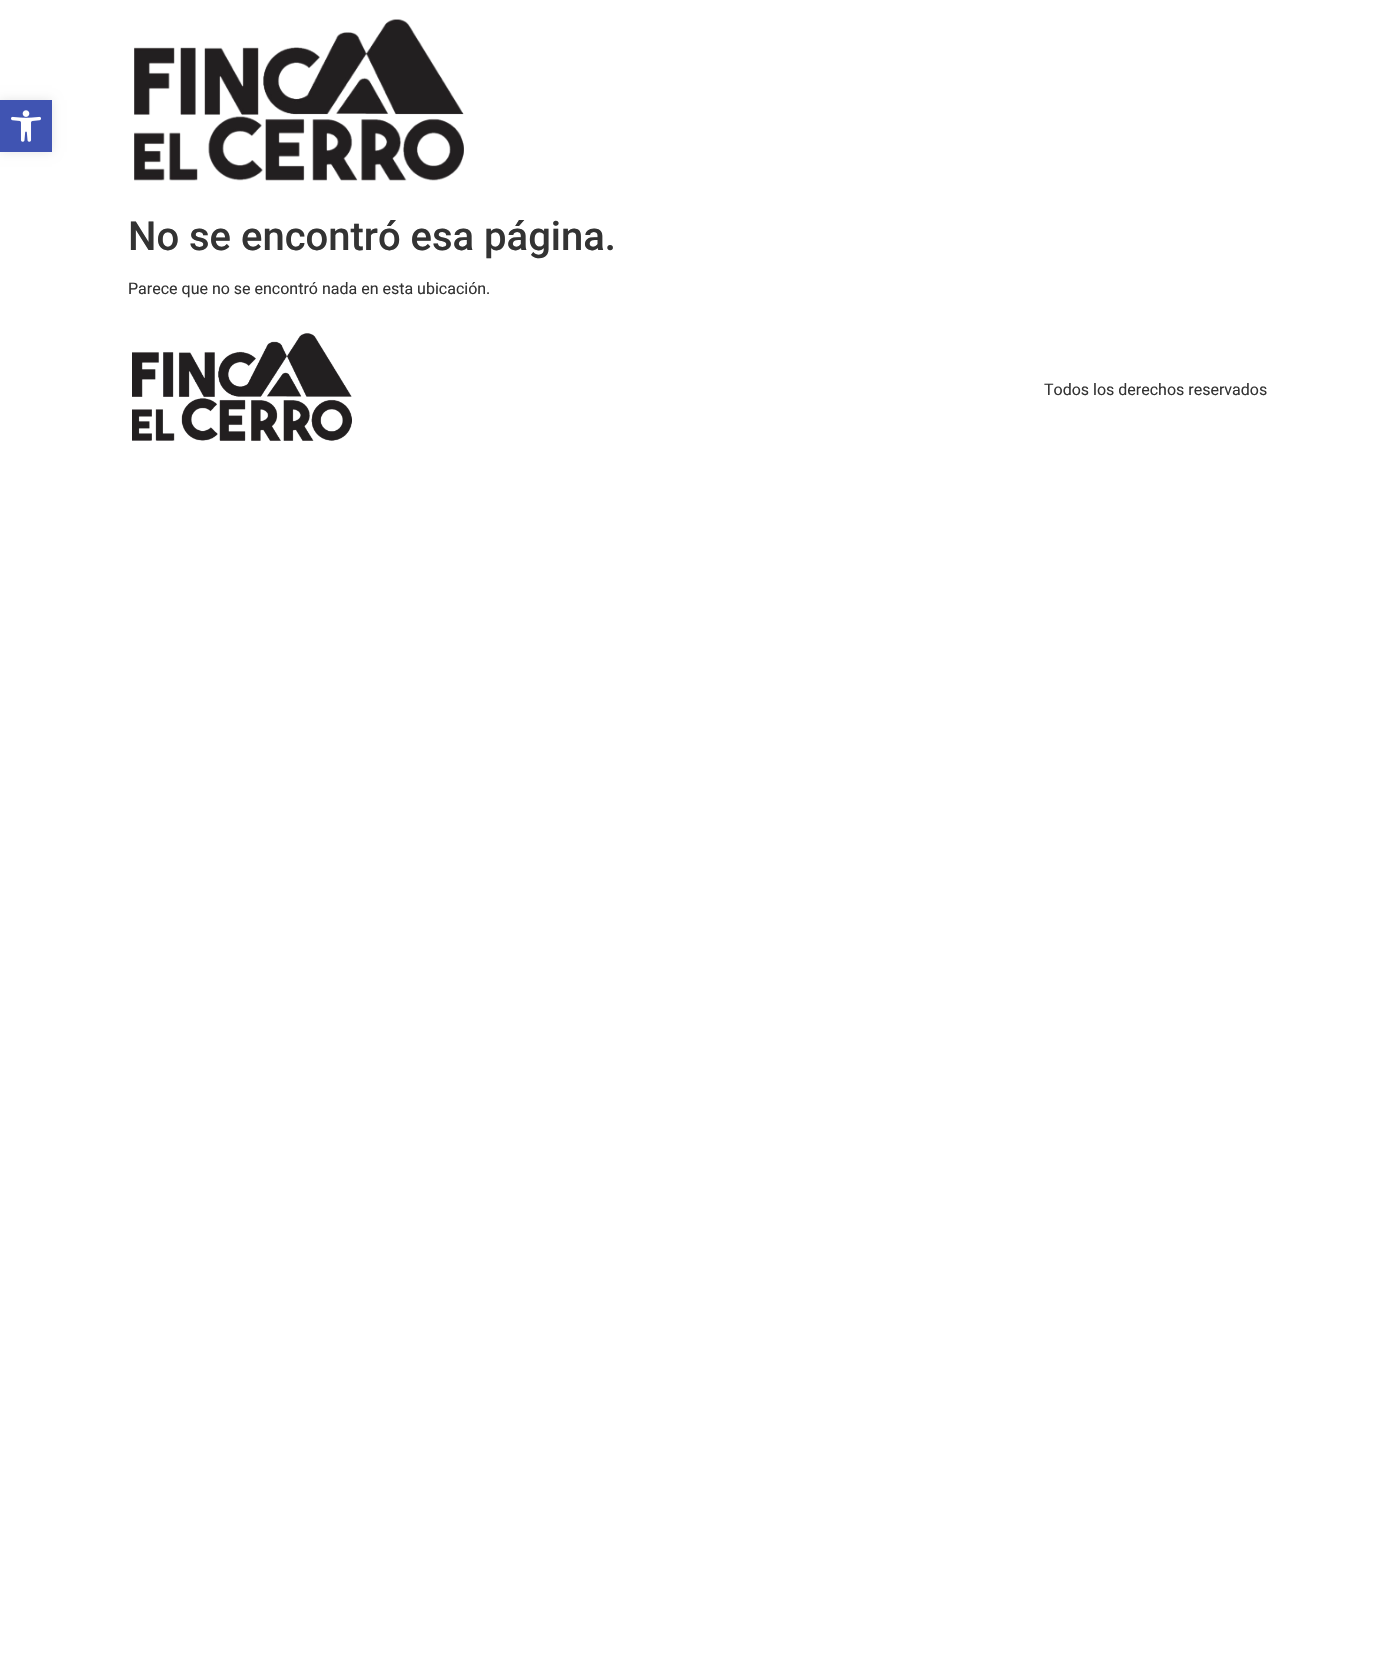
void draw(SkCanvas* c) {
SkPaint p;
p.setAntiAlias(true);
auto F=[&](const char* family, int weight, float size, bool italic = false){SkFontStyle style(weight, SkFontStyle::kNormal_Width,italic ? SkFontStyle::kItalic_Slant : SkFontStyle::kUpright_Slant);SkFont result(fontMgr->matchFamilyStyle(family, style), size);result.setSubpixel(true);return result;};
auto T=[&](const char* s, float x, float y, const SkFont& font){c->drawString(s, x, y, font, p);};
auto R=[&](float x, float y, float w, float h){c->drawRect(SkRect::MakeXYWH(x, y, w, h), p);};
auto I=[&](const char* path, float x, float y, float w, float h){auto image = SkImages::DeferredFromEncodedData(SkData::MakeFromFileName(path));c->drawImageRect(image, SkRect::MakeXYWH(x, y, w, h), SkSamplingOptions());};
c->clear(0xffffffff);
p.setColor(0x1a000000);
p.setMaskFilter(SkMaskFilter::MakeBlur(kNormal_SkBlurStyle, 5));
c->drawRect(SkRect::MakeXYWH(0,100,52,52),p);
p.setMaskFilter(nullptr);
p.setColor(0xff4054b2);
R(0,100,52,52);
I("1.png",11,110,30,32);
I("2.png",134,19,330,162);
auto f1 = F("Roboto",500,40);
p.setColor(0xff333333);
T("No se encontró esa página.",128,250,f1);
auto f2 = F("Roboto",400,16);
T("Parece que no se encontró nada en esta ubicación.",128,294,f2);
I("3.png",132,333,220,108);
T("Todos los derechos reservados",1044,395,f2);
}
